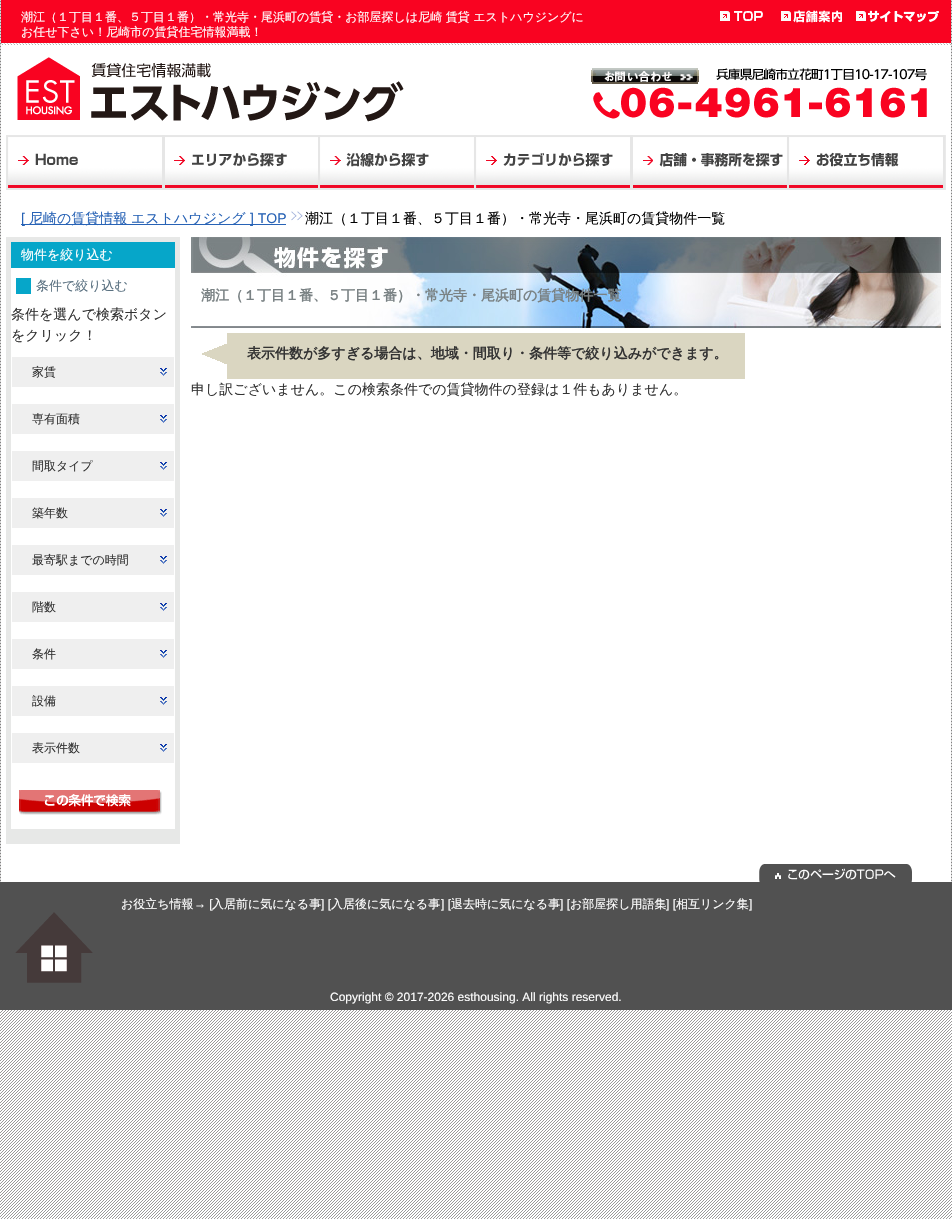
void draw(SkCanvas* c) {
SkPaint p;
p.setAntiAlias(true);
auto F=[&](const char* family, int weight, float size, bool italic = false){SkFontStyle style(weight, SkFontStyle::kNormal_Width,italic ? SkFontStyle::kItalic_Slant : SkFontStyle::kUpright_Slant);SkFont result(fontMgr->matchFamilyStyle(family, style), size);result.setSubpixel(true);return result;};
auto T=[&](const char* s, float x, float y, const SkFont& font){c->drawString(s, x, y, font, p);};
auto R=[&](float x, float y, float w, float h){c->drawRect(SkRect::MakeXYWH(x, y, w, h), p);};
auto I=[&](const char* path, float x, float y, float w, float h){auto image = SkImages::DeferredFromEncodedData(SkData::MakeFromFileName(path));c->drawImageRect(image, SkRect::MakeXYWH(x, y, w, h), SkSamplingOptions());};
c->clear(0xffffffff);
I("1.png",0,0,952,1219);
I("2.png",0,0,952,882);
p.setColor(0xffffffff);
R(1,45,950,837);
p.setColor(0xfff90321);
R(1,0,950,43);
I("3.png",1,43,950,2);
auto f1 = F("WenQuanYi Zen Hei",500,12);
p.setColor(0xffffffff);
T("潮江（１丁目１番、５丁目１番）・常光寺・尾浜町の賃貸・お部屋探しは尼崎 賃貸 エストハウジングに",21,21,f1);
T("お任せ下さい！尼崎市の賃貸住宅情報満載！",21,36,f1);
I("4.png",720,11,43,10);
I("5.png",781,10,61,13);
I("6.png",856,10,83,12);
I("7.png",17,57,387,65);
I("8.png",593,68,334,51);
I("9.png",591,68,108,16);
I("10.png",6,135,156,55);
I("11.png",162,135,156,55);
I("12.png",318,135,156,55);
I("13.png",474,135,156,55);
I("14.png",630,135,159,55);
I("15.png",789,135,157,55);
p.setColor(0xff2863b6);
R(21,224,265,1);
auto f2 = F("Liberation Sans",400,14);
T("[",21,223,f2);
auto f3 = F("WenQuanYi Zen Hei",500,14);
T("尼崎の賃貸情報",29,223,f3);
T("エストハウジング",131,223,f3);
T("] TOP",250,223,f2);
I("16.png",291,211,12,10);
p.setColor(0xff000000);
T("潮江（１丁目１番、５丁目１番）・常光寺・尾浜町の賃貸物件一覧",305,223,f3);
p.setStroke(true);
p.setStrokeWidth(5);
p.setColor(0xffe7e8e7);
c->drawRect(SkRect::MakeXYWH(8.5,239.5,169,602),p);
p.setStroke(false);
p.setColor(0xff06a6c9);
R(11,242,164,26);
auto f4 = F("WenQuanYi Zen Hei",500,13);
p.setColor(0xffffffff);
T("物件を絞り込む",21,259,f4);
p.setColor(0xffe7e8e7);
R(11,829,164,10);
p.setColor(0xff06a6c9);
R(16,278,15,16);
p.setColor(0xff597080);
T("条件で絞り込む",36,290,f4);
p.setColor(0xff333333);
T("条件を選んで検索ボタン",11,319,f3);
T("をクリック！",11,340,f3);
p.setColor(0xffefefef);
R(12,357,162,30);
I("17.png",160,368,7,8);
p.setColor(0xff333333);
T("家賃",32,376,f1);
p.setColor(0xffefefef);
R(12,404,162,30);
I("17.png",160,415,7,8);
p.setColor(0xff333333);
T("専有面積",32,423,f1);
p.setColor(0xffefefef);
R(12,451,162,30);
I("17.png",160,462,7,8);
p.setColor(0xff333333);
T("間取タイプ",32,470,f1);
p.setColor(0xffefefef);
R(12,498,162,30);
I("17.png",160,509,7,8);
p.setColor(0xff333333);
T("築年数",32,517,f1);
p.setColor(0xffefefef);
R(12,545,162,30);
I("17.png",160,556,7,8);
p.setColor(0xff333333);
T("最寄駅までの時間",32,564,f1);
p.setColor(0xffefefef);
R(12,592,162,30);
I("17.png",160,603,7,8);
p.setColor(0xff333333);
T("階数",32,611,f1);
p.setColor(0xffefefef);
R(12,639,162,30);
I("17.png",160,650,7,8);
p.setColor(0xff333333);
T("条件",32,658,f1);
p.setColor(0xffefefef);
R(12,686,162,30);
I("17.png",160,697,7,8);
p.setColor(0xff333333);
T("設備",32,705,f1);
p.setColor(0xffefefef);
R(12,733,162,30);
I("17.png",160,744,7,8);
p.setColor(0xff333333);
T("表示件数",32,752,f1);
I("18.png",19,790,143,25);
I("19.png",191,237,750,91);
auto f5 = F("WenQuanYi Zen Hei",700,14);
p.setColor(0xff7a8284);
T("潮江（１丁目１番、５丁目１番）・常光寺・尾浜町の賃貸物件一覧",201,300,f5);
I("20.png",202,344,25,20);
p.setColor(0xffdad6c1);
R(227,333,518,46);
p.setColor(0xff333333);
T("表示件数が多すぎる場合は、地域・間取り・条件等で絞り込みができます。",247,358,f5);
T("申し訳ございません。この検索条件での賃貸物件の登録は１件もありません。",191,394,f3);
I("21.png",759,864,153,18);
p.setColor(0xff515151);
R(0,882,952,128);
p.setColor(0xffffffff);
T("お役立ち情報",121,908,f1);
auto f6 = F("Liberation Sans",400,12);
T("→ [",194,908,f6);
T("入居前に気になる事",212,908,f1);
T("] [",321,908,f6);
T("入居後に気になる事",331,908,f1);
T("] [",441,908,f6);
T("退去時に気になる事",451,908,f1);
T("] [",560,908,f6);
T("お部屋探し用語集",570,908,f1);
T("] [",666,908,f6);
T("相互リンク集",676,908,f1);
T("]",749,908,f6);
I("22.png",15,912,78,71);
T("Copyright © 2017-2026 esthousing. All rights reserved.",330,1001,f6);
}
